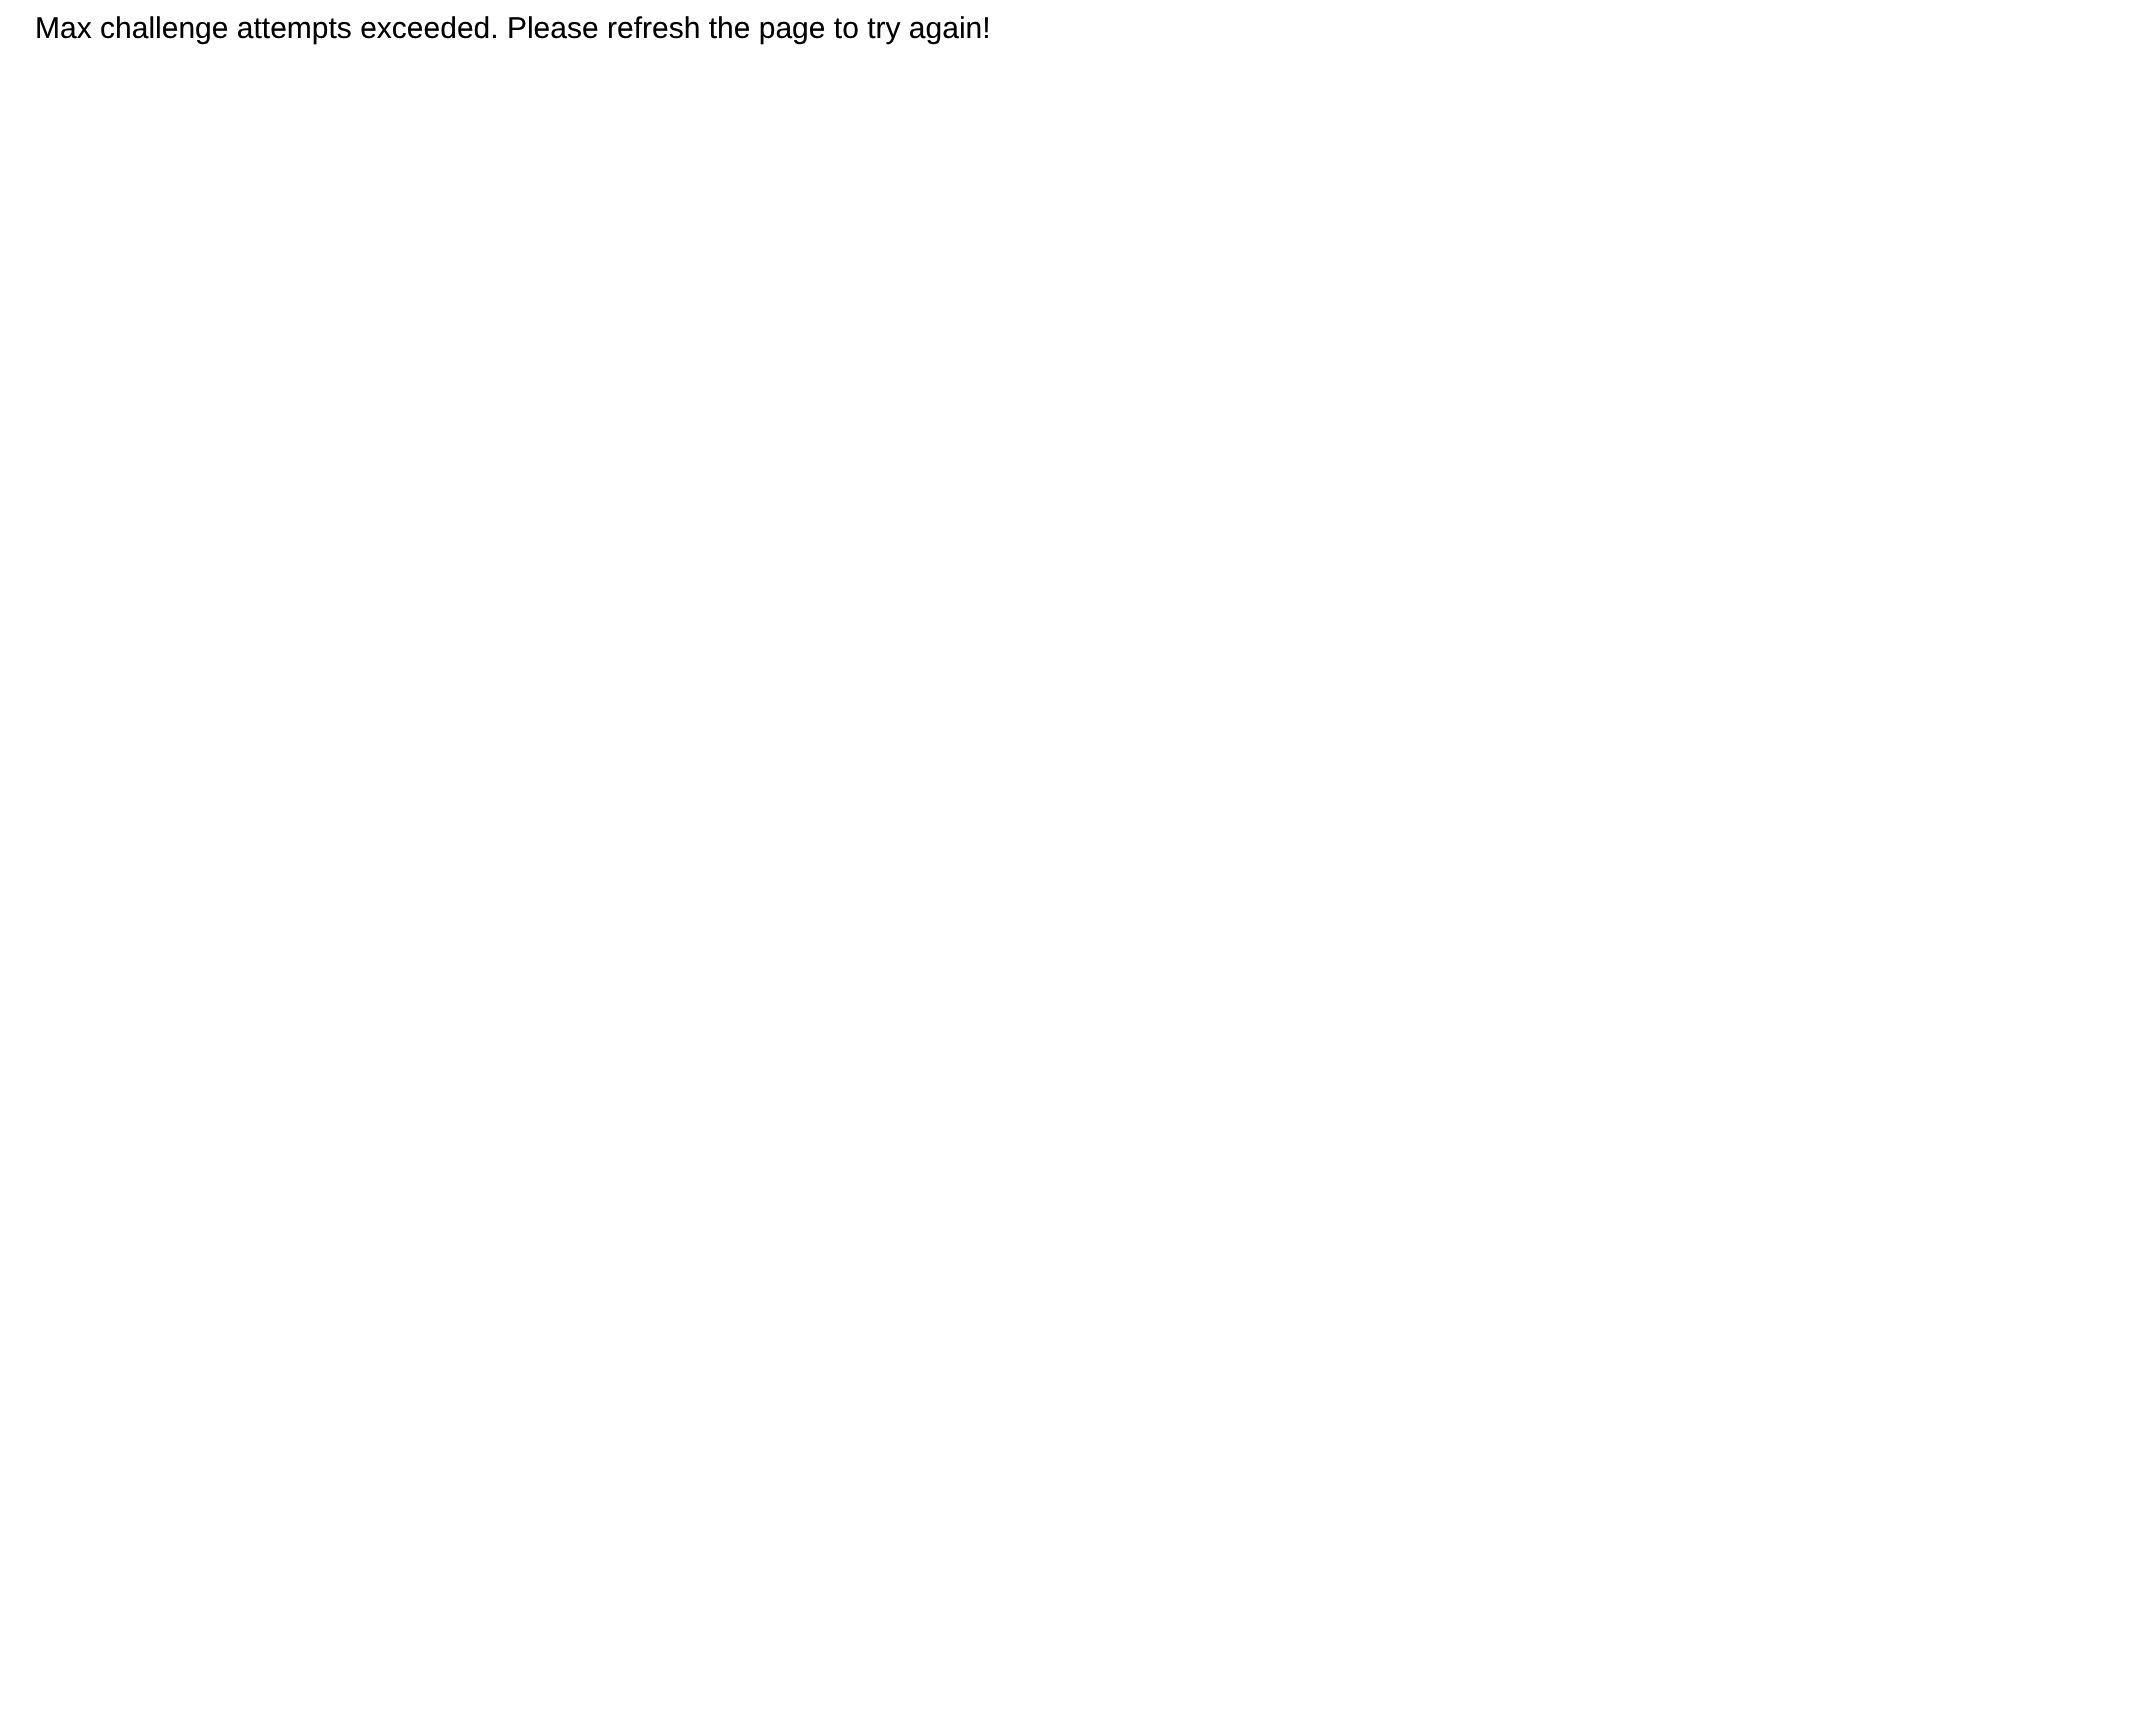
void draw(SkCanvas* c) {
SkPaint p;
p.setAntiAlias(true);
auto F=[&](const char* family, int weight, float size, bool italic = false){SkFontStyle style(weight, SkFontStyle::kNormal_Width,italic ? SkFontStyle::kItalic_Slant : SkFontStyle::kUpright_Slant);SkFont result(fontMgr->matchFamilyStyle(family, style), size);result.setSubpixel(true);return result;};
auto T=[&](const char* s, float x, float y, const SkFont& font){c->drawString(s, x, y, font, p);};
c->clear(0xffffffff);
auto f1 = F("Liberation Sans",400,30);
p.setColor(0xff000000);
T("Max challenge attempts exceeded. Please refresh the page to try again!",35,38,f1);
}
